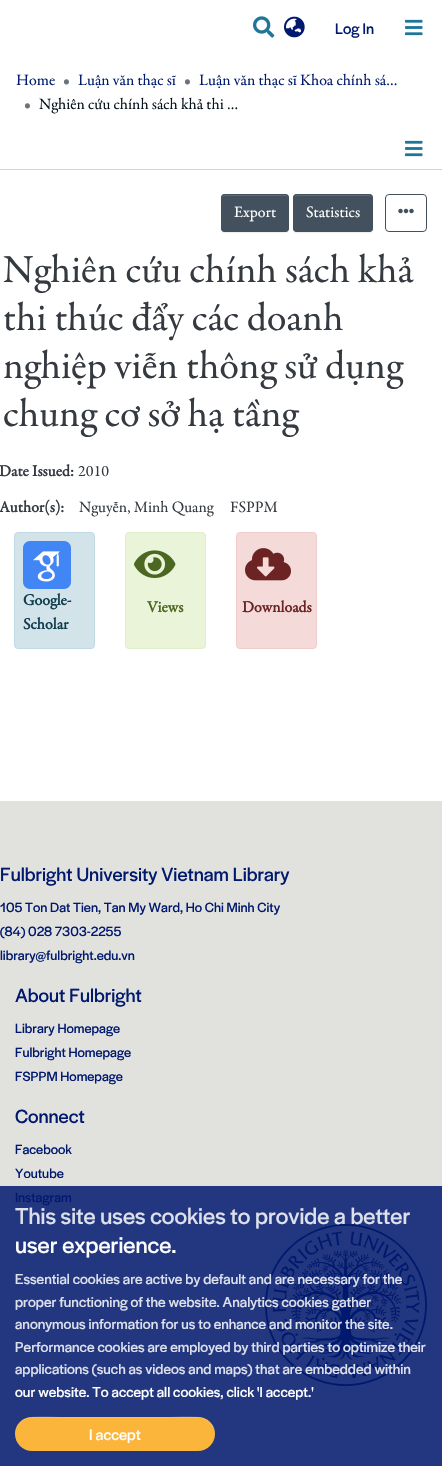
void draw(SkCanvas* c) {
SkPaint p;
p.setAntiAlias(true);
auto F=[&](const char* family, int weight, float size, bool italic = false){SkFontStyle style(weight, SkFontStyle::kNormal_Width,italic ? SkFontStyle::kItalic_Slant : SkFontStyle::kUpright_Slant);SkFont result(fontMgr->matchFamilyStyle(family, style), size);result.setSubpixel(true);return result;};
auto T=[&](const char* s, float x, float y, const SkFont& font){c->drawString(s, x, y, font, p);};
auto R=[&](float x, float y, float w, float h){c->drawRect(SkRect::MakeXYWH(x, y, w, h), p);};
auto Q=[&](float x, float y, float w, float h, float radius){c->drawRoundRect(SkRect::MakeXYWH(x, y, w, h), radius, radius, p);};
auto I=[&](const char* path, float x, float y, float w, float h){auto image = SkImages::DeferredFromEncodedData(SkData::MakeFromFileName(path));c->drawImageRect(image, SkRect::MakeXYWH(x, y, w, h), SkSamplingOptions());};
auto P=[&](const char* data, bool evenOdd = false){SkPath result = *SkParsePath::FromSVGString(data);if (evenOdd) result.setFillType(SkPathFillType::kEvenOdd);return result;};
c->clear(0xffffffff);
I("1.png",253,16,22,22);
I("2.png",284,16,21,22);
auto f1 = F("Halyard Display",400,16);
p.setColor(0xff00196e);
T("Log In",335,34,f1);
I("3.png",405,19,18,17);
auto f2 = F("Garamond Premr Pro",400,16);
T("Home",16,85,f2);
p.setColor(0xff6c757d);
T("•",63,85,f2);
p.setColor(0xff00196e);
T("Luận văn thạc sĩ",78,85,f2);
p.setColor(0xff6c757d);
T("•",184,85,f2);
p.setColor(0xff00196e);
T("Luận văn thạc sĩ Khoa chính sá…",199,85,f2);
p.setColor(0xff6c757d);
T("•",24,109,f2);
p.setColor(0xff05141a);
T("Nghiên cứu chính sách khả thi …",39,109,f2);
I("3.png",405,140,18,17);
p.setColor(0xffced4da);
R(0,169,442,1);
p.setColor(0x12000000);
p.setMaskFilter(SkMaskFilter::MakeBlur(kNormal_SkBlurStyle, .5));
c->drawRoundRect(SkRect::MakeXYWH(221,195,68,38),4,4,p);
p.setMaskFilter(nullptr);
p.setColor(0xff43515f);
Q(221,194,68,38,4);
p.setColor(0xff5f6b77);
c->drawPath(P("M225 196h60c2 0 3 1 3 3c0-7-9-4-13-4h-40c-4 0-13-3-13 4c0-2 1-3 3-3z"),p);
p.setStroke(true);
p.setStrokeWidth(1);
p.setColor(0xff43515f);
c->drawRoundRect(SkRect::MakeXYWH(221.5,194.5,67,37),3.5,3.5,p);
p.setStroke(false);
p.setColor(0xffffffff);
T("Export",234,217,f2);
p.setColor(0x12000000);
p.setMaskFilter(SkMaskFilter::MakeBlur(kNormal_SkBlurStyle, .5));
c->drawRoundRect(SkRect::MakeXYWH(293,195,80,38),4,4,p);
p.setMaskFilter(nullptr);
p.setColor(0xff43515f);
Q(293,194,80,38,4);
p.setColor(0xff5f6b77);
c->drawPath(P("M297 196h72c2 0 3 1 3 3c0-7-11-4-15-4h-48c-4 0-15-3-15 4c0-2 1-3 3-3z"),p);
p.setStroke(true);
p.setColor(0xff43515f);
c->drawRoundRect(SkRect::MakeXYWH(293.5,194.5,79,37),3.5,3.5,p);
p.setStroke(false);
p.setColor(0xffffffff);
T("Statistics",306,217,f2);
p.setStroke(true);
p.setColor(0xff43515f);
c->drawRoundRect(SkRect::MakeXYWH(385.5,194.5,41,37),3.5,3.5,p);
I("4.png",398,208,16,6);
auto f3 = F("Garamond Premr Pro",400,40);
p.setStroke(false);
p.setColor(0xff343a40);
T("Nghiên cứu chính sách khả",3,282,f3);
T("thi thúc đẩy các doanh",3,330,f3);
T("nghiệp viễn thông sử dụng",3,378,f3);
T("chung cơ sở hạ tầng",3,426,f3);
auto f4 = F("Garamond Premr Pro",700,16);
T("Date Issued:",-1,476,f4);
T("2010",78,476,f2);
T("Author(s):",-1,512,f4);
T("Nguyễn, Minh Quang",79,512,f2);
T("FSPPM",230,512,f2);
p.setColor(0xffd2e4ea);
c->drawRoundRect(SkRect::MakeXYWH(14.5,532.5,80,116),3.5,3.5,p);
p.setStroke(true);
p.setColor(0xffc1d9e2);
c->drawRoundRect(SkRect::MakeXYWH(14.5,532.5,80,116),3.5,3.5,p);
I("5.png",23,541,48,48);
p.setStroke(false);
p.setColor(0xff113d4f);
T("Google-",23,605,f4);
T("Scholar",23,629,f4);
p.setColor(0xffe9f4d9);
c->drawRoundRect(SkRect::MakeXYWH(125.5,532.5,80,116),3.5,3.5,p);
p.setStroke(true);
p.setColor(0xffe0efca);
c->drawRoundRect(SkRect::MakeXYWH(125.5,532.5,80,116),3.5,3.5,p);
I("6.png",134,550,42,28);
p.setStroke(false);
p.setColor(0xff4c6722);
T("Views",147,612,f4);
p.setColor(0xfff5dada);
c->drawRoundRect(SkRect::MakeXYWH(236.5,532.5,80,116),3.5,3.5,p);
p.setStroke(true);
p.setColor(0xfff2cbcb);
c->drawRoundRect(SkRect::MakeXYWH(236.5,532.5,80,116),3.5,3.5,p);
I("7.png",245,548,46,33);
p.setStroke(false);
p.setColor(0xff6c2323);
T("Downloads",242,612,f4);
p.setColor(0xffe1e1de);
R(0,801,442,385);
p.setColor(0xff22377f);
R(0,1186,442,280);
auto f5 = F("Halyard Display",400,20);
p.setColor(0xff00196e);
T("Fulbright University Vietnam Library",0,881,f5);
auto f6 = F("Halyard Display",400,14);
T("105 Ton Dat Tien, Tan My Ward, Ho Chi Minh City",0,912,f6);
T("(84) 028 7303-2255",0,936,f6);
T("library@fulbright.edu.vn",0,960,f6);
T("About Fulbright",15,1002,f5);
T("Library Homepage",15,1033,f6);
T("Fulbright Homepage",15,1057,f6);
T("FSPPM Homepage",15,1081,f6);
T("Connect",15,1123,f5);
T("Facebook",15,1154,f6);
T("Youtube",15,1178,f6);
T("Instagram",15,1202,f6);
I("8.png",265,1224,162,162);
auto f7 = F("Halyard Display",400,24);
p.setColor(0xffdee1ec);
T("This site uses cookies to provide a better",15,1224,f7);
p.setColor(0xffffffff);
T("user experience.",15,1253,f7);
auto f8 = F("Halyard Display",400,15);
p.setColor(0xffdee1ec);
T("Essential cookies are active by default and are necessary for the",15,1284,f8);
T("proper functioning of the website. Analytics cookies gather",15,1307,f8);
T("anonymous information for us to enhance and monitor the site.",15,1329,f8);
T("Performance cookies are employed by third parties to optimize their",15,1352,f8);
T("applications (such as videos and maps) that are embedded within",15,1374,f8);
p.setColor(0xffffffff);
T("our website. To accept all cookies, click 'I accept.'",15,1397,f8);
p.setColor(0xfffbb53a);
Q(15,1417,200,34,17);
p.setColor(0x26fbfbfa);
c->drawPath(P("M32 1418h166c9 0 17 8 17 17c1-24-32-18-45-18h-110c-13 0-46-6-45 18c0-9 8-17 17-17z"),p);
p.setColor(0xffffffff);
T("I accept",89,1440,f1);
}
